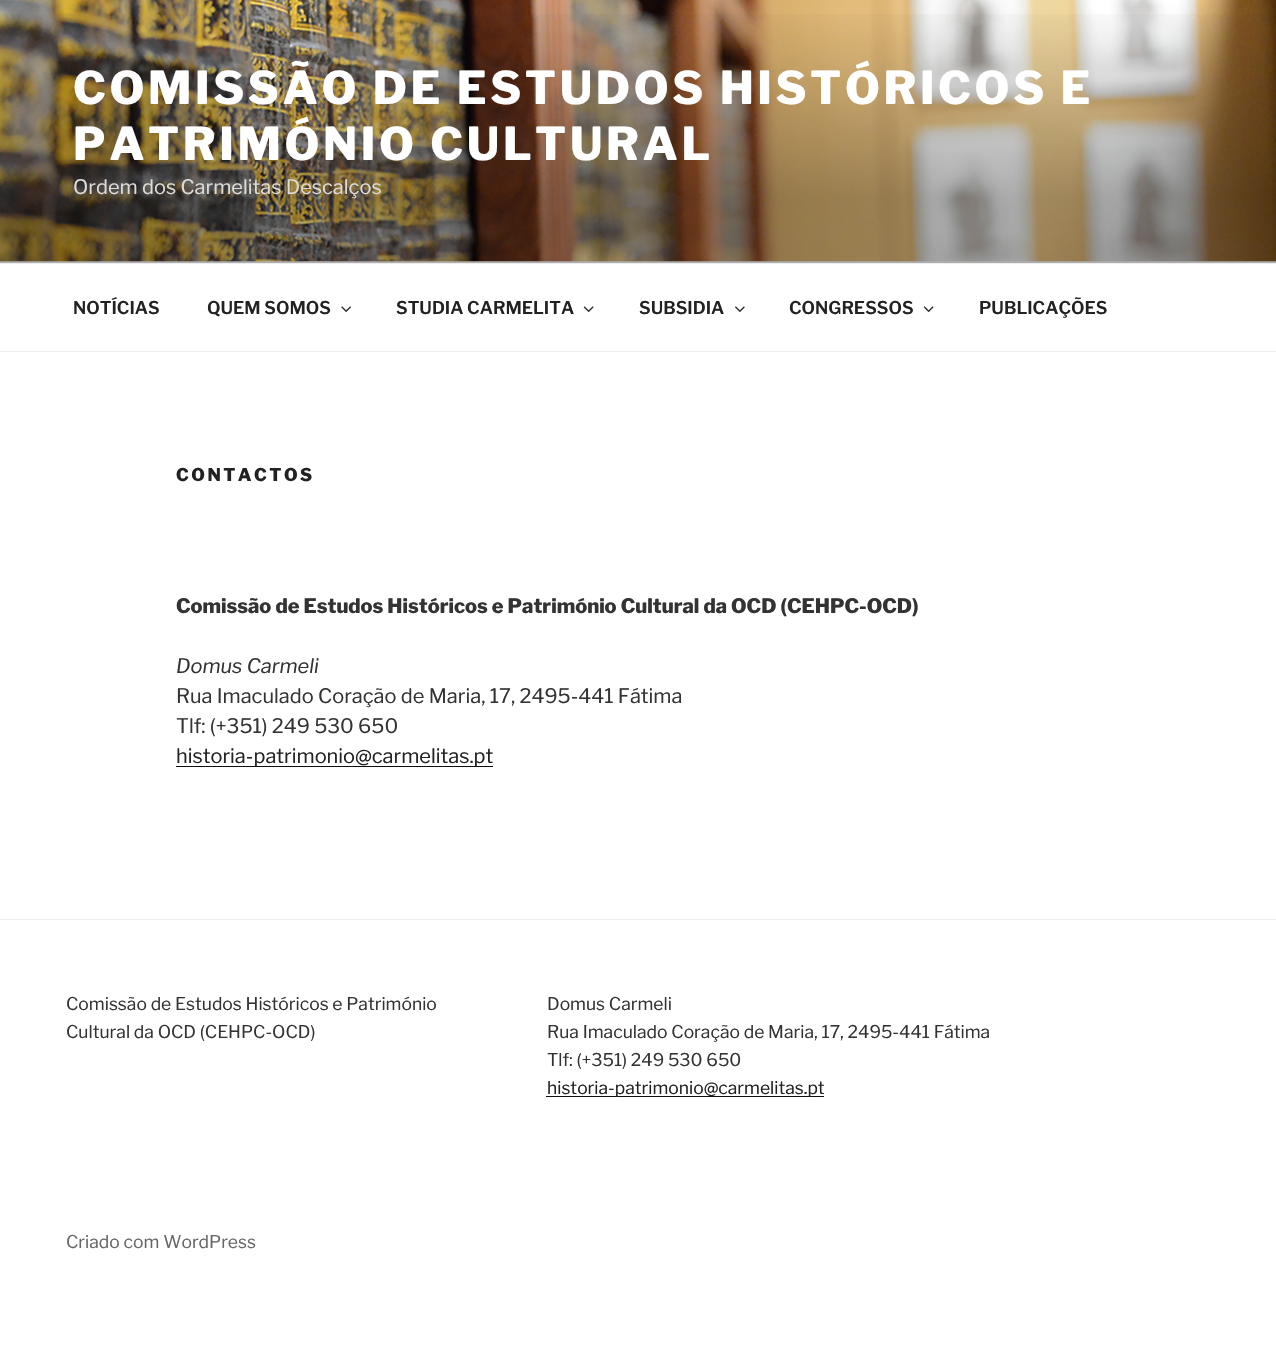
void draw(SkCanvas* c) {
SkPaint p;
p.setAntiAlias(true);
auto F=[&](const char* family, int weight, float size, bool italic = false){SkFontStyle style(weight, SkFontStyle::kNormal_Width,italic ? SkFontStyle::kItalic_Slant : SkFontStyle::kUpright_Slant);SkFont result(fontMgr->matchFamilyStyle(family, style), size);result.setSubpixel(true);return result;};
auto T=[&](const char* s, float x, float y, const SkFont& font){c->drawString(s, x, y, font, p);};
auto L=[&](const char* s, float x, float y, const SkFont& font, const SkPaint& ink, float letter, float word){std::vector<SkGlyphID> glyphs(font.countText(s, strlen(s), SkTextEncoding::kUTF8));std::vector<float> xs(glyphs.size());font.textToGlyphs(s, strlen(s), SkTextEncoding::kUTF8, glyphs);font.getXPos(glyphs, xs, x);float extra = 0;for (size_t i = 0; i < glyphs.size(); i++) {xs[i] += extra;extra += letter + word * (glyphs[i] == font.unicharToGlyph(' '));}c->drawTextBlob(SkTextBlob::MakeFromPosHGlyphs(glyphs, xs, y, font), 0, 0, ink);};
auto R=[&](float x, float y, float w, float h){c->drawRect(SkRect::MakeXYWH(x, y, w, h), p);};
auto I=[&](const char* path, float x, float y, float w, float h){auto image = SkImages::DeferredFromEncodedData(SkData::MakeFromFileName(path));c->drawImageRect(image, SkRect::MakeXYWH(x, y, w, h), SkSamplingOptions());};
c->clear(0xffffffff);
p.setColor(0xfffafafa);
R(0,261,1276,2);
I("1.png",0,0,1276,262);
{
const SkColor colors[] = {0x00000000,0x4d000000,0x4d000000};
const float stops[] = {0,.75,1};
const SkPoint ends[] = {{638,0}, {638,263}};
p.setShader(SkGradientShader::MakeLinear(ends, colors, stops, 3, SkTileMode::kClamp));
p.setAlpha(255);
}
R(0,14,1276,249);
auto f1 = F("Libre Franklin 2",100,45);
p.setShader(nullptr);
p.setColor(0xffffffff);
L("COMISSÃO DE ESTUDOS HISTÓRICOS E",73,104,f1,p,3.6,0);
L("PATRIMÓNIO CULTURAL",73,160,f1,p,3.6,0);
auto f2 = F("Libre Franklin",100,20);
p.setColor(0xffdedcd9);
T("Ordem dos Carmelitas Descalços",73,194,f2);
p.setColor(0xffeeeeee);
R(0,263,1276,1);
R(0,351,1276,1);
auto f3 = F("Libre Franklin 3",100,17.5);
p.setColor(0xff222222);
T("NOTÍCIAS",73,314,f3);
T("QUEM SOMOS",207,314,f3);
I("2.png",341,306,10,6);
T("STUDIA CARMELITA",396,314,f3);
I("3.png",583,306,11,6);
T("SUBSIDIA",639,314,f3);
I("4.png",735,306,10,6);
T("CONGRESSOS",789,314,f3);
I("3.png",923,306,11,6);
T("PUBLICAÇÕES",979,314,f3);
auto f4 = F("Libre Franklin 2",100,17.5);
L("CONTACTOS",176,481,f4,p,2.5,0);
auto f5 = F("Libre Franklin 2",100,20);
p.setColor(0xff333333);
T("Comissão de Estudos Históricos e Património Cultural da OCD (CEHPC-OCD)",176,613,f5);
auto f6 = F("Libre Franklin",100,20,true);
T("Domus Carmeli",176,673,f6);
T("Rua Imaculado Coração de Maria, 17, 2495-441 Fátima",176,703,f2);
T("Tlf: (+351) 249 530 650",176,733,f2);
p.setColor(0xff0f0f0f);
R(176,766,317,1);
p.setColor(0xff222222);
T("historia-patrimonio@carmelitas.pt",176,763,f2);
p.setColor(0xffeeeeee);
R(0,919,1276,1);
auto f7 = F("Libre Franklin",100,17.5);
p.setColor(0xff333333);
T("Comissão de Estudos Históricos e Património",66,1010,f7);
T("Cultural da OCD (CEHPC-OCD)",66,1038,f7);
T("Domus Carmeli",547,1010,f7);
T("Rua Imaculado Coração de Maria, 17, 2495-441 Fátima",547,1038,f7);
T("Tlf: (+351) 249 530 650",547,1066,f7);
p.setColor(0xff0f0f0f);
R(546,1096,278,1);
p.setColor(0xff222222);
T("historia-patrimonio@carmelitas.pt",547,1094,f7);
p.setColor(0xff666666);
T("Criado com WordPress",66,1248,f7);
}
